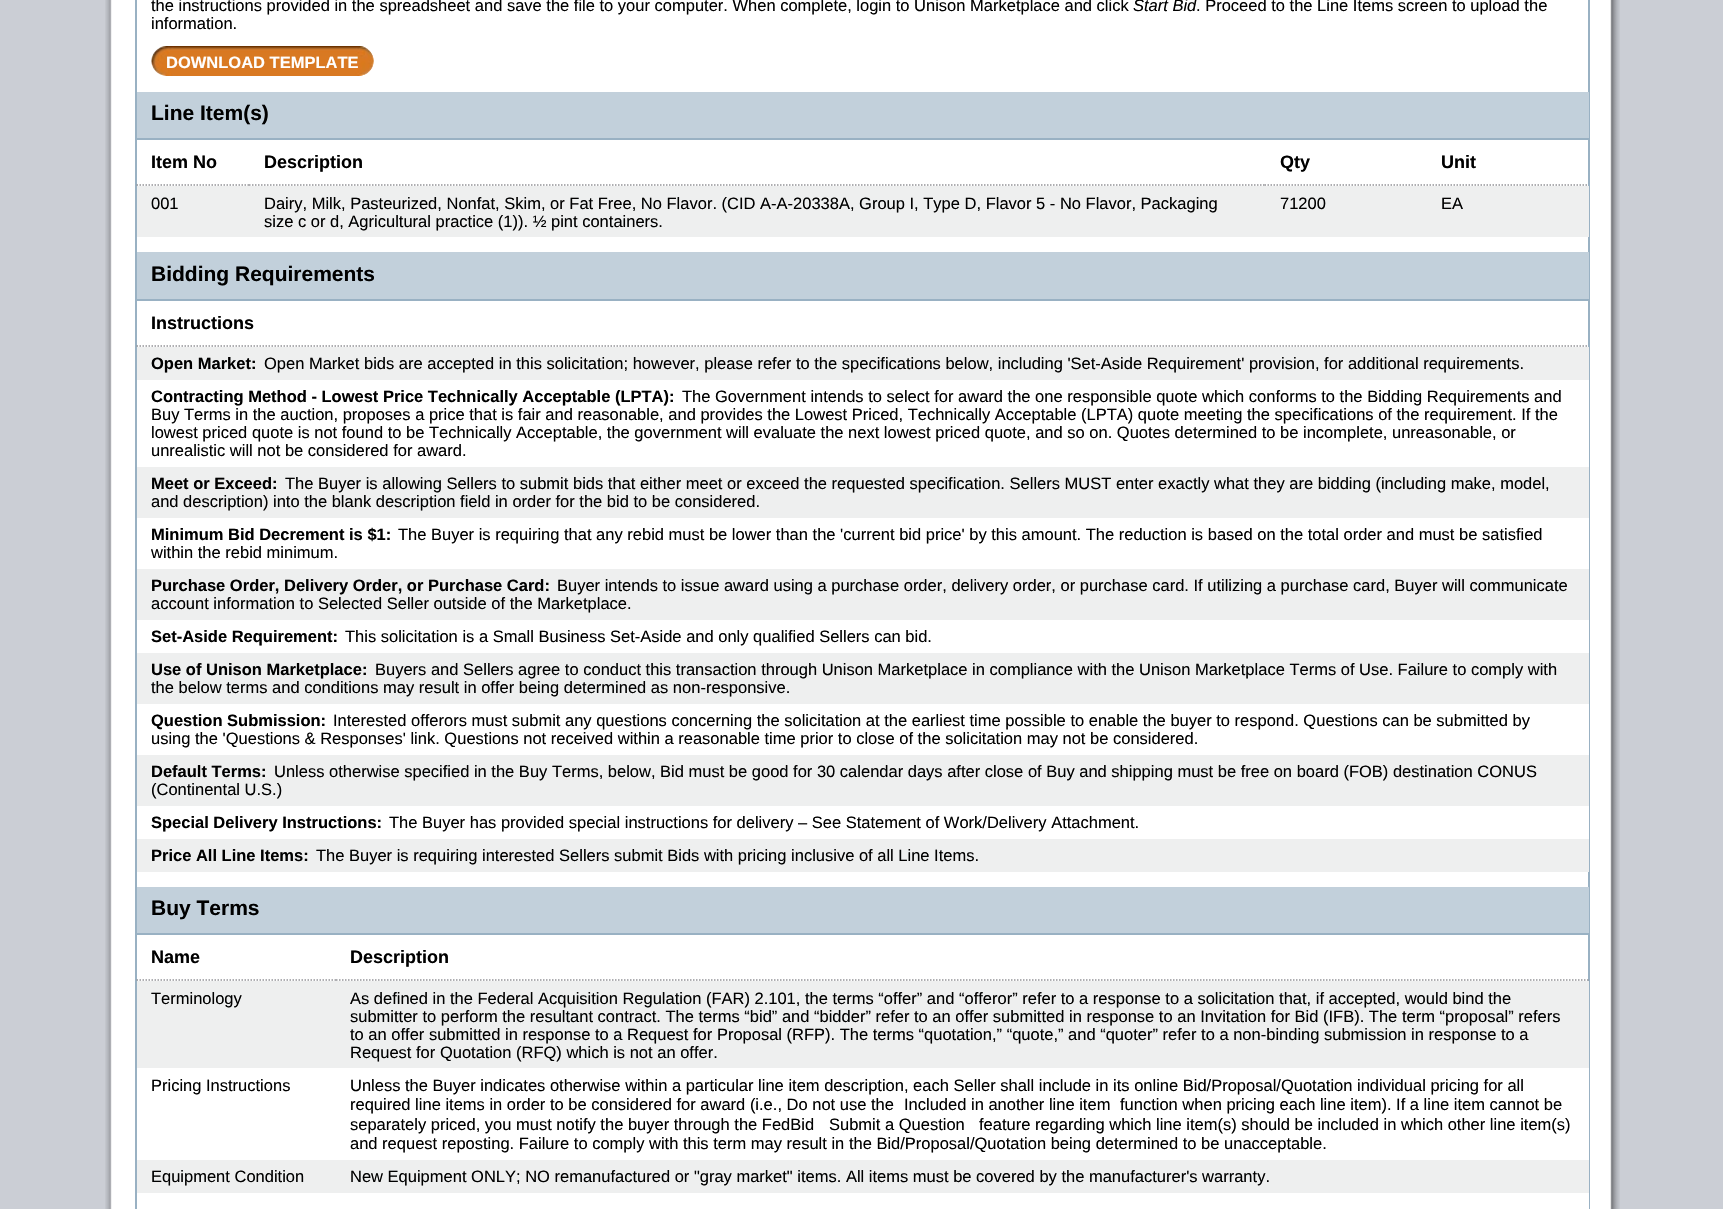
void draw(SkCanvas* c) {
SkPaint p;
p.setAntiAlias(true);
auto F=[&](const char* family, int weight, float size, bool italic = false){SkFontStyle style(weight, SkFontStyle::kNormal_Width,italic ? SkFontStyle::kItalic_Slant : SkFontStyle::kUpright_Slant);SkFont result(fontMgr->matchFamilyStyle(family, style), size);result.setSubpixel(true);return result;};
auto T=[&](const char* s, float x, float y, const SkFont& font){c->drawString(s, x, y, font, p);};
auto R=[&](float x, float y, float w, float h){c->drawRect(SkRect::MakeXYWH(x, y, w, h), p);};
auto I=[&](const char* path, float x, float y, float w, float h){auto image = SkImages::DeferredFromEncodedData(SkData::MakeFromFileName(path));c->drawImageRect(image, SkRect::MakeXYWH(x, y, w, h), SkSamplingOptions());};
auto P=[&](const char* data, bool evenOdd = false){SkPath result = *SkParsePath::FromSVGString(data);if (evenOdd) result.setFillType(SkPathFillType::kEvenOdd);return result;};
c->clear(0xffcbced5);
I("1.png",105,0,1515,1209);
p.setStroke(true);
p.setStrokeWidth(2);
p.setColor(0xff99b1c3);
c->drawRect(SkRect::MakeXYWH(136,-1,1453,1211),p);
auto f1 = F("Liberation Sans",400,16.5);
p.setStroke(false);
p.setColor(0xff000000);
T("the instructions provided in the spreadsheet and save the file to your computer. When complete, login to Unison Marketplace and click",151,11,f1);
auto f2 = F("Liberation Sans",400,16.5,true);
T("Start Bid",1133,11,f2);
T(". Proceed to the Line Items screen to upload the",1196,11,f1);
T("information.",151,29,f1);
I("2.png",151,46,223,30);
I("3.png",167,46,207,30);
auto f3 = F("Liberation Sans",700,16.5);
p.setColor(0xffffffff);
T("DOWNLOAD TEMPLATE",166,68,f3);
p.setColor(0xffc2d0db);
R(137,92,1452,46);
p.setColor(0xff99b1c3);
R(137,138,1452,2);
auto f4 = F("Liberation Sans",700,21);
p.setColor(0xff000000);
T("Line Item(s)",151,120,f4);
p.setStroke(true);
p.setStrokeWidth(1.5);
p.setColor(0xff949497);
p.setPathEffect(SkDashPathEffect::Make({{1.5f,1.5f}}, 0));
c->drawPath(P("M136.5 185h112.5"),p);
p.setPathEffect(nullptr);
auto f5 = F("Liberation Sans",700,18);
p.setStroke(false);
p.setColor(0xff000000);
T("Item No",151,168,f5);
p.setStroke(true);
p.setColor(0xff949497);
p.setPathEffect(SkDashPathEffect::Make({{1.5f,1.5f}}, 0));
c->drawPath(P("M249 185h1015.5"),p);
p.setPathEffect(nullptr);
p.setStroke(false);
p.setColor(0xff000000);
T("Description",264,168,f5);
p.setStroke(true);
p.setColor(0xff949497);
p.setPathEffect(SkDashPathEffect::Make({{1.5f,1.5f}}, 0));
c->drawPath(P("M1264.5 185h162"),p);
p.setPathEffect(nullptr);
p.setStroke(false);
p.setColor(0xff000000);
T("Qty",1280,168,f5);
p.setStroke(true);
p.setColor(0xff949497);
p.setPathEffect(SkDashPathEffect::Make({{1.5f,1.5f}}, 0));
c->drawPath(P("M1426.5 185h162"),p);
p.setPathEffect(nullptr);
p.setStroke(false);
p.setColor(0xff000000);
T("Unit",1441,168,f5);
p.setColor(0xffeeefef);
R(137,186,1452,51);
p.setColor(0xff000000);
T("001",151,209,f1);
T("Dairy, Milk, Pasteurized, Nonfat, Skim, or Fat Free, No Flavor. (CID A-A-20338A, Group I, Type D, Flavor 5 - No Flavor, Packaging",264,209,f1);
T("size c or d, Agricultural practice (1)). ½ pint containers.",264,227,f1);
T("71200",1280,209,f1);
T("EA",1441,209,f1);
p.setColor(0xffc2d0db);
R(137,252,1452,47);
p.setColor(0xff99b1c3);
R(137,299,1452,2);
p.setColor(0xff000000);
T("Bidding Requirements",151,281,f4);
p.setStroke(true);
p.setColor(0xff949497);
p.setPathEffect(SkDashPathEffect::Make({{1.5f,1.5f}}, 0));
c->drawPath(P("M136.5 346h1452"),p);
p.setPathEffect(nullptr);
p.setStroke(false);
p.setColor(0xff000000);
T("Instructions",151,329,f5);
p.setColor(0xffeeefef);
R(137,347,1452,33);
p.setColor(0xff000000);
T("Open Market:",151,369,f3);
T("Open Market bids are accepted in this solicitation; however, please refer to the specifications below, including 'Set-Aside Requirement' provision, for additional requirements.",264,369,f1);
p.setColor(0xffffffff);
R(1588,380,1,87);
p.setColor(0xff000000);
T("Contracting Method - Lowest Price Technically Acceptable (LPTA):",151,402,f3);
T("The Government intends to select for award the one responsible quote which conforms to the Bidding Requirements and",682,402,f1);
T("Buy Terms in the auction, proposes a price that is fair and reasonable, and provides the Lowest Priced, Technically Acceptable (LPTA) quote meeting the specifications of the requirement. If the",151,420,f1);
T("lowest priced quote is not found to be Technically Acceptable, the government will evaluate the next lowest priced quote, and so on. Quotes determined to be incomplete, unreasonable, or",151,438,f1);
T("unrealistic will not be considered for award.",151,456,f1);
p.setColor(0xffeeefef);
R(137,467,1452,51);
p.setColor(0xff000000);
T("Meet or Exceed:",151,489,f3);
T("The Buyer is allowing Sellers to submit bids that either meet or exceed the requested specification. Sellers MUST enter exactly what they are bidding (including make, model,",285,489,f1);
T("and description) into the blank description field in order for the bid to be considered.",151,507,f1);
p.setColor(0xffffffff);
R(1588,518,1,51);
p.setColor(0xff000000);
T("Minimum Bid Decrement is $1:",151,540,f3);
T("The Buyer is requiring that any rebid must be lower than the 'current bid price' by this amount. The reduction is based on the total order and must be satisfied",398,540,f1);
T("within the rebid minimum.",151,558,f1);
p.setColor(0xffeeefef);
R(137,569,1452,51);
p.setColor(0xff000000);
T("Purchase Order, Delivery Order, or Purchase Card:",151,591,f3);
T("Buyer intends to issue award using a purchase order, delivery order, or purchase card. If utilizing a purchase card, Buyer will communicate",557,591,f1);
T("account information to Selected Seller outside of the Marketplace.",151,609,f1);
p.setColor(0xffffffff);
R(1588,620,1,33);
p.setColor(0xff000000);
T("Set-Aside Requirement:",151,642,f3);
T("This solicitation is a Small Business Set-Aside and only qualified Sellers can bid.",345,642,f1);
p.setColor(0xffeeefef);
R(137,653,1452,51);
p.setColor(0xff000000);
T("Use of Unison Marketplace:",151,675,f3);
T("Buyers and Sellers agree to conduct this transaction through Unison Marketplace in compliance with the Unison Marketplace Terms of Use. Failure to comply with",375,675,f1);
T("the below terms and conditions may result in offer being determined as non-responsive.",151,693,f1);
p.setColor(0xffffffff);
R(1588,704,1,51);
p.setColor(0xff000000);
T("Question Submission:",151,726,f3);
T("Interested offerors must submit any questions concerning the solicitation at the earliest time possible to enable the buyer to respond. Questions can be submitted by",333,726,f1);
T("using the 'Questions & Responses' link. Questions not received within a reasonable time prior to close of the solicitation may not be considered.",151,744,f1);
p.setColor(0xffeeefef);
R(137,755,1452,51);
p.setColor(0xff000000);
T("Default Terms:",151,777,f3);
T("Unless otherwise specified in the Buy Terms, below, Bid must be good for 30 calendar days after close of Buy and shipping must be free on board (FOB) destination CONUS",274,777,f1);
T("(Continental U.S.)",151,795,f1);
p.setColor(0xffffffff);
R(1588,806,1,33);
p.setColor(0xff000000);
T("Special Delivery Instructions:",151,828,f3);
T("The Buyer has provided special instructions for delivery – See Statement of Work/Delivery Attachment.",389,828,f1);
p.setColor(0xffeeefef);
R(137,839,1452,33);
p.setColor(0xff000000);
T("Price All Line Items:",151,861,f3);
T("The Buyer is requiring interested Sellers submit Bids with pricing inclusive of all Line Items.",316,861,f1);
p.setColor(0xffc2d0db);
R(137,887,1452,46);
p.setColor(0xff99b1c3);
R(137,933,1452,2);
p.setColor(0xff000000);
T("Buy Terms",151,915,f4);
p.setStroke(true);
p.setColor(0xff949497);
p.setPathEffect(SkDashPathEffect::Make({{1.5f,1.5f}}, 0));
c->drawPath(P("M136.5 980h199.5"),p);
p.setPathEffect(nullptr);
p.setStroke(false);
p.setColor(0xff000000);
T("Name",151,963,f5);
p.setStroke(true);
p.setColor(0xff949497);
p.setPathEffect(SkDashPathEffect::Make({{1.5f,1.5f}}, 0));
c->drawPath(P("M336 980h1252.5"),p);
p.setPathEffect(nullptr);
p.setStroke(false);
p.setColor(0xff000000);
T("Description",350,963,f5);
p.setColor(0xffeeefef);
R(137,981,1452,87);
p.setColor(0xff000000);
T("Terminology",151,1004,f1);
T("As defined in the Federal Acquisition Regulation (FAR) 2.101, the terms “offer” and “offeror” refer to a response to a solicitation that, if accepted, would bind the",350,1004,f1);
T("submitter to perform the resultant contract. The terms “bid” and “bidder” refer to an offer submitted in response to an Invitation for Bid (IFB). The term “proposal” refers",350,1022,f1);
T("to an offer submitted in response to a Request for Proposal (RFP). The terms “quotation,” “quote,” and “quoter” refer to a non-binding submission in response to a",350,1040,f1);
T("Request for Quotation (RFQ) which is not an offer.",350,1058,f1);
p.setColor(0xffffffff);
R(1588,1068,1,92);
p.setColor(0xff000000);
T("Pricing Instructions",151,1091,f1);
T("Unless the Buyer indicates otherwise within a particular line item description, each Seller shall include in its online Bid/Proposal/Quotation individual pricing for all",350,1091,f1);
T("required line items in order to be considered for award (i.e., Do not use the",350,1110,f1);
T("Included in another line item",904,1110,f1);
T("function when pricing each line item). If a line item cannot be",1120,1110,f1);
T("separately priced, you must notify the buyer through the FedBid",350,1130,f1);
T("Submit a Question",829,1130,f1);
T("feature regarding which line item(s) should be included in which other line item(s)",979,1130,f1);
T("and request reposting. Failure to comply with this term may result in the Bid/Proposal/Quotation being determined to be unacceptable.",350,1149,f1);
p.setColor(0xffeeefef);
R(137,1160,1452,33);
p.setColor(0xff000000);
T("Equipment Condition",151,1182,f1);
T("New Equipment ONLY; NO remanufactured or \"gray market\" items. All items must be covered by the manufacturer's warranty.",350,1182,f1);
p.setColor(0xffffffff);
R(1588,1193,1,16);
}
